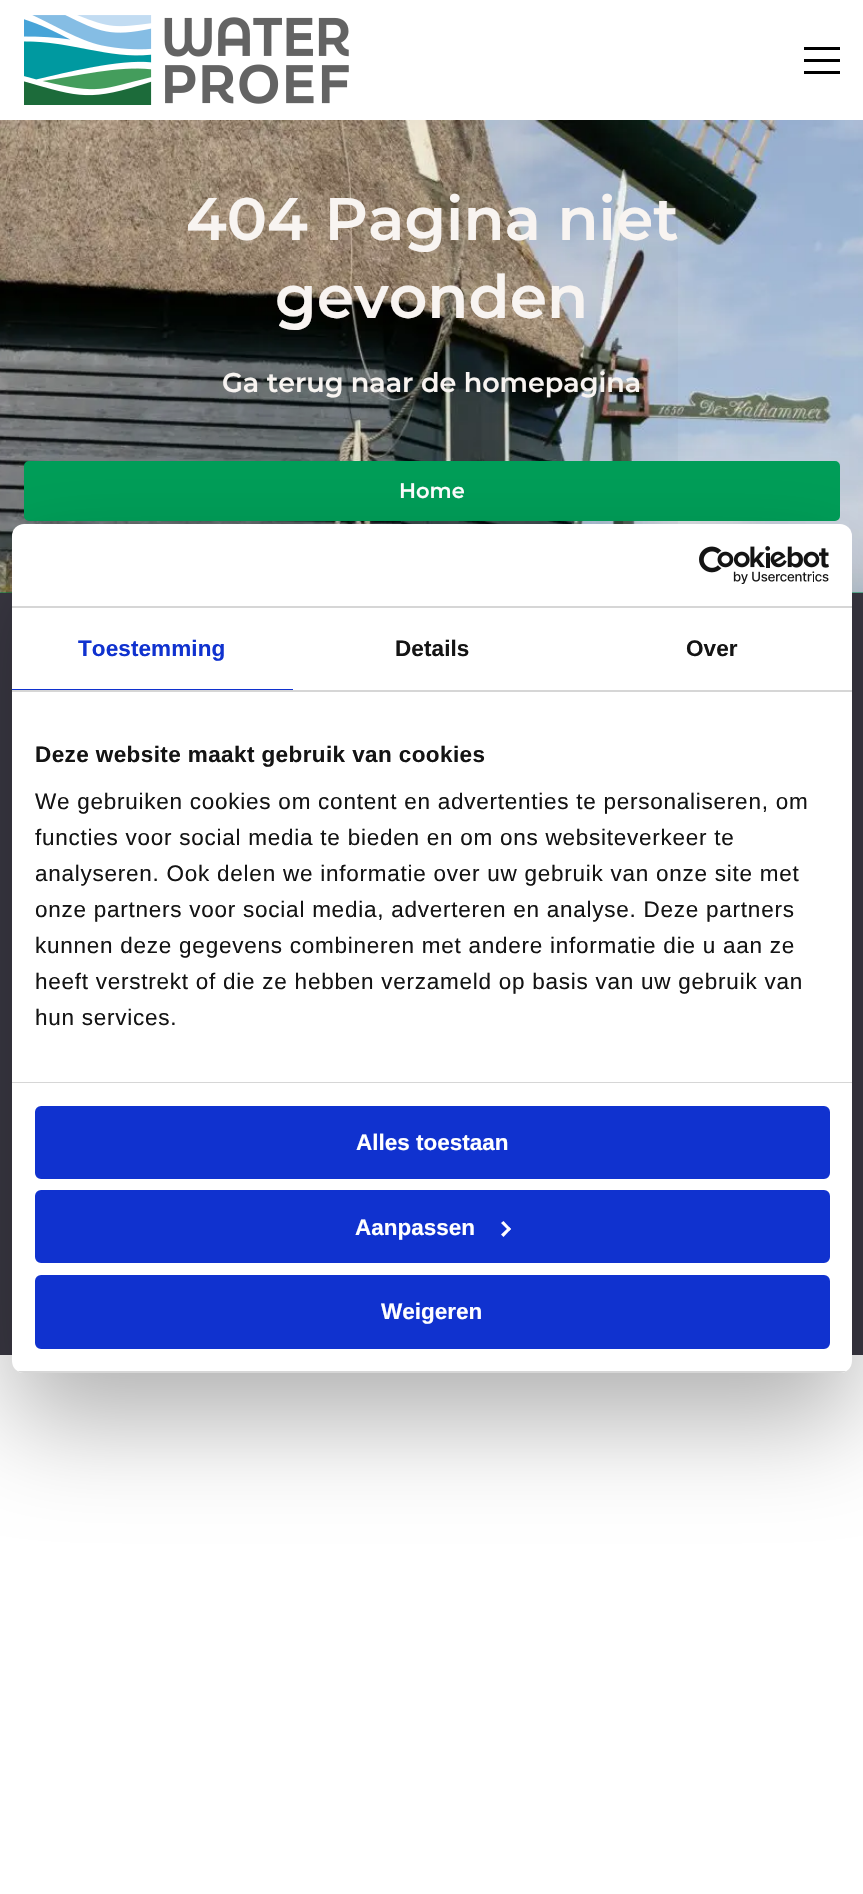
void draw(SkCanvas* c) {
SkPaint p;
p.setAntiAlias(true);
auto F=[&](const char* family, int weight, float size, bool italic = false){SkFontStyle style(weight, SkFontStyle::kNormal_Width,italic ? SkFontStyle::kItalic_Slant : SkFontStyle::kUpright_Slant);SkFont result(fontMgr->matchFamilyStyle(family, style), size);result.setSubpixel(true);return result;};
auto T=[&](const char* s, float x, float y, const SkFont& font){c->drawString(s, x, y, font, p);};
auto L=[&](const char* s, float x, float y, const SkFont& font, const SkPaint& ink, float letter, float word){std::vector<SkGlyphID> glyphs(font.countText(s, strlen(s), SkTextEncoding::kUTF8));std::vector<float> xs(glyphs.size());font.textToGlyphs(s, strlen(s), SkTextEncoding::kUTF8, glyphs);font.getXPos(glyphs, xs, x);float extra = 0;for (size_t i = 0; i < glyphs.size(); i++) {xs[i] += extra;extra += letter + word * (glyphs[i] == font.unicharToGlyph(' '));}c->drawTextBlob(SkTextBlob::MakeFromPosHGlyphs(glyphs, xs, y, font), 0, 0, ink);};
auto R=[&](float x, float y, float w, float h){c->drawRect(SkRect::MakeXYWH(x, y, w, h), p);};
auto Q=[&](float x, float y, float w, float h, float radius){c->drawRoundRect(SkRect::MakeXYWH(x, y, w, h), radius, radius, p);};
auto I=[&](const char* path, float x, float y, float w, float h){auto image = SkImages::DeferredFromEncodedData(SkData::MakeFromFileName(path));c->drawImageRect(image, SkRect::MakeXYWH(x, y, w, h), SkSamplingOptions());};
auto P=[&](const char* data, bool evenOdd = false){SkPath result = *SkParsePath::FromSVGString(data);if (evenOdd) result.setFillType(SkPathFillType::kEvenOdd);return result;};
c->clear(0xffffffff);
I("1.png",24,15,325,90);
p.setColor(0xff000000);
R(804,47,36,3);
R(804,59,36,3);
R(804,71,36,3);
p.setColor(0xff009e58);
R(0,592,863,1);
I("2.png",0,120,863,473);
{
const SkColor colors[] = {0x1a000000,0x00000000};
const float stops[] = {0,1};
const SkPoint ends[] = {{0,356}, {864,356}};
p.setShader(SkGradientShader::MakeLinear(ends, colors, stops, 2, SkTileMode::kClamp));
p.setAlpha(255);
}
R(0,120,678,473);
auto f1 = F("Montserrat",100,60);
p.setShader(nullptr);
p.setColor(0xfff8f4f1);
T("404 Pagina niet",186,240,f1);
T("gevonden",275,318,f1);
auto f2 = F("Montserrat",100,27);
T("Ga terug naar de homepagina",222,392,f2);
p.setColor(0xff009e58);
c->drawRoundRect(SkRect::MakeXYWH(25.5,462.5,813,57),3.5,3.5,p);
p.setStroke(true);
p.setStrokeWidth(3);
c->drawRoundRect(SkRect::MakeXYWH(25.5,462.5,813,57),3.5,3.5,p);
auto f3 = F("Montserrat",100,21);
p.setStroke(false);
p.setColor(0xffffffff);
T("Home",399,498,f3);
p.setColor(0xff3a3843);
R(0,593,863,762);
p.setColor(0x4d000000);
p.setMaskFilter(SkMaskFilter::MakeBlur(kNormal_SkBlurStyle, 51));
c->drawRoundRect(SkRect::MakeXYWH(12,572,840,849),12,12,p);
p.setMaskFilter(nullptr);
p.setColor(0xffffffff);
Q(12,524,840,849,12);
p.setColor(0xffd6d6d6);
R(12,606,840,2);
I("3.png",699,546,130,38);
R(12,690,840,2);
p.setColor(0xff1032cf);
R(12,689,281,1);
auto f4 = F("Liberation Sans",700,22.5);
L("Toestemming",78,656,f4,p,.1,0);
p.setColor(0xff141414);
L("Details",395,656,f4,p,.1,0);
L("Over",686,656,f4,p,.1,0);
p.setColor(0xffd6d6d6);
R(12,1082,840,1);
p.setColor(0xff141414);
L("Deze website maakt gebruik van cookies",35,762,f4,p,.4,0);
auto f5 = F("Liberation Sans",400,22.5);
L("We gebruiken cookies om content en advertenties te personaliseren, om",35,809,f5,p,.75,0);
L("functies voor social media te bieden en om ons websiteverkeer te",35,845,f5,p,.75,0);
L("analyseren. Ook delen we informatie over uw gebruik van onze site met",35,881,f5,p,.75,0);
L("onze partners voor social media, adverteren en analyse. Deze partners",35,917,f5,p,.75,0);
L("kunnen deze gegevens combineren met andere informatie die u aan ze",35,953,f5,p,.75,0);
L("heeft verstrekt of die ze hebben verzameld op basis van uw gebruik van",35,989,f5,p,.75,0);
L("hun services.",35,1025,f5,p,.75,0);
c->save();
c->clipPath(P("M24 524h816c6.5 0 12 5.5 12 12v825c0 6.5-5.5 12-12 12h-816c-6.5 0-12-5.5-12-12v-825c0-6.5 5.5-12 12-12z"),true);
p.setColor(0xffd6d6d6);
R(12,1371,840,2);
c->restore();
p.setColor(0xff1032cf);
c->drawRoundRect(SkRect::MakeXYWH(36.5,1107.5,792,70),4.5,4.5,p);
p.setStroke(true);
c->drawRoundRect(SkRect::MakeXYWH(36.5,1107.5,792,70),4.5,4.5,p);
p.setStroke(false);
p.setColor(0xffffffff);
T("Alles toestaan",356,1150,f4);
p.setColor(0xff1032cf);
c->drawRoundRect(SkRect::MakeXYWH(36.5,1191.5,792,70),4.5,4.5,p);
p.setStroke(true);
c->drawRoundRect(SkRect::MakeXYWH(36.5,1191.5,792,70),4.5,4.5,p);
p.setStroke(false);
p.setColor(0xffffffff);
T("Aanpassen",355,1235,f4);
c->drawPath(P("M503.5 1221l7.5 8l-2 2l-8-8z"),p);
c->drawPath(P("M509 1227l2 2l-7.5 8l-2.5-2.5z"),p);
p.setColor(0xff1032cf);
c->drawRoundRect(SkRect::MakeXYWH(36.5,1276.5,792,71),4.5,4.5,p);
p.setStroke(true);
c->drawRoundRect(SkRect::MakeXYWH(36.5,1276.5,792,71),4.5,4.5,p);
p.setStroke(false);
p.setColor(0xffffffff);
T("Weigeren",381,1319,f4);
}
